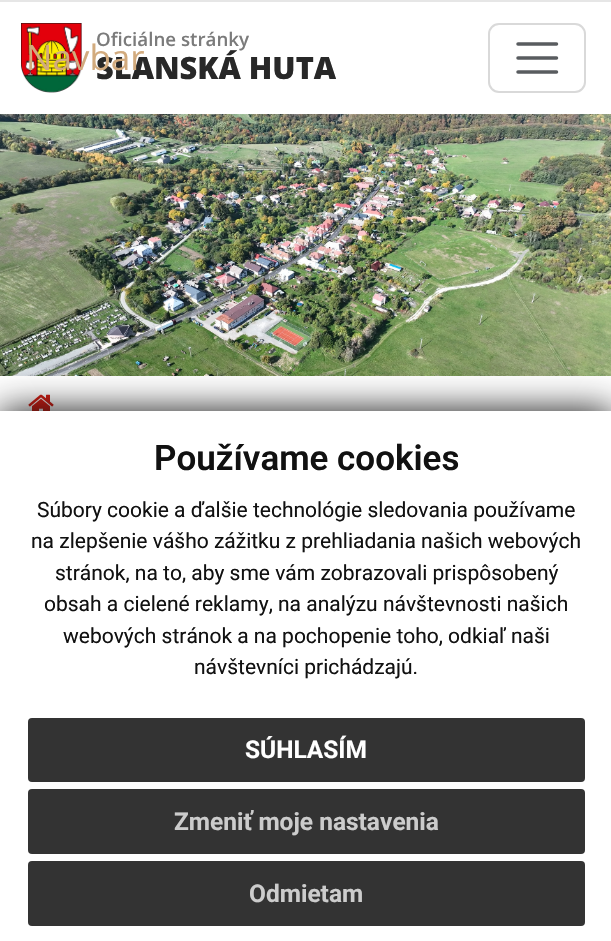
void draw(SkCanvas* c) {
SkPaint p;
p.setAntiAlias(true);
auto F=[&](const char* family, int weight, float size, bool italic = false){SkFontStyle style(weight, SkFontStyle::kNormal_Width,italic ? SkFontStyle::kItalic_Slant : SkFontStyle::kUpright_Slant);SkFont result(fontMgr->matchFamilyStyle(family, style), size);result.setSubpixel(true);return result;};
auto T=[&](const char* s, float x, float y, const SkFont& font){c->drawString(s, x, y, font, p);};
auto R=[&](float x, float y, float w, float h){c->drawRect(SkRect::MakeXYWH(x, y, w, h), p);};
auto Q=[&](float x, float y, float w, float h, float radius){c->drawRoundRect(SkRect::MakeXYWH(x, y, w, h), radius, radius, p);};
auto I=[&](const char* path, float x, float y, float w, float h){auto image = SkImages::DeferredFromEncodedData(SkData::MakeFromFileName(path));c->drawImageRect(image, SkRect::MakeXYWH(x, y, w, h), SkSamplingOptions());};
auto P=[&](const char* data, bool evenOdd = false){SkPath result = *SkParsePath::FromSVGString(data);if (evenOdd) result.setFillType(SkPathFillType::kEvenOdd);return result;};
c->clear(0xffffffff);
p.setColor(0xffe6e6e6);
R(0,0,611,2);
I("1.png",21,23,61,70);
auto f1 = F("Open Sans",800,30.75);
p.setColor(0xff282828);
T("SLANSKÁ HUTA",96,79,f1);
auto f2 = F("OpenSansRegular",400,35);
p.setColor(0xffd2ab7e);
T("Navbar",26,70,f2);
p.setStroke(true);
p.setStrokeWidth(2);
p.setColor(0xffd9d9d9);
c->drawRoundRect(SkRect::MakeXYWH(489,24,96,68),10,10,p);
p.setStrokeWidth(3.5);
p.setStrokeCap(SkPaint::kRound_Cap);
p.setColor(0xff595c5f);
c->drawPath(P("M518 44h38.5m-38.5 14h38.5m-38.5 14h38.5"),p);
auto f3 = F("Open Sans",600,18.75);
p.setStroke(false);
p.setColor(0xff7b7b7b);
T("Oficiálne stránky",96,46,f3);
I("2.png",0,114,611,262);
I("3.png",28,394,26,17);
p.setColor(0xff111111);
p.setMaskFilter(SkMaskFilter::MakeBlur(kNormal_SkBlurStyle, 17.5));
c->drawRect(SkRect::MakeXYWH(0,411,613,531),p);
p.setMaskFilter(nullptr);
p.setColor(0xffffffff);
R(0,411,611,530);
auto f4 = F("Roboto",600,35);
p.setColor(0xff111111);
T("Používame cookies",154,470,f4);
auto f5 = F("Roboto",400,21);
T("Súbory cookie a ďalšie technológie sledovania používame",37,517,f5);
T("na zlepšenie vášho zážitku z prehliadania našich webových",31,548,f5);
T("stránok, na to, aby sme vám zobrazovali prispôsobený",55,580,f5);
T("obsah a cielené reklamy, na analýzu návštevnosti našich",44,611,f5);
T("webových stránok a na pochopenie toho, odkiaľ naši",63,643,f5);
T("návštevníci prichádzajú.",194,674,f5);
p.setColor(0xff333333);
Q(28,718,557,64,4);
auto f6 = F("Roboto",700,24.5);
p.setColor(0xffffffff);
T("SÚHLASÍM",245,758,f6);
p.setColor(0xff333333);
Q(28,789,557,65,4);
p.setColor(0xffcccccc);
T("Zmeniť moje nastavenia",174,830,f6);
p.setColor(0xff333333);
Q(28,861,557,65,4);
p.setColor(0xffcccccc);
T("Odmietam",249,902,f6);
}
